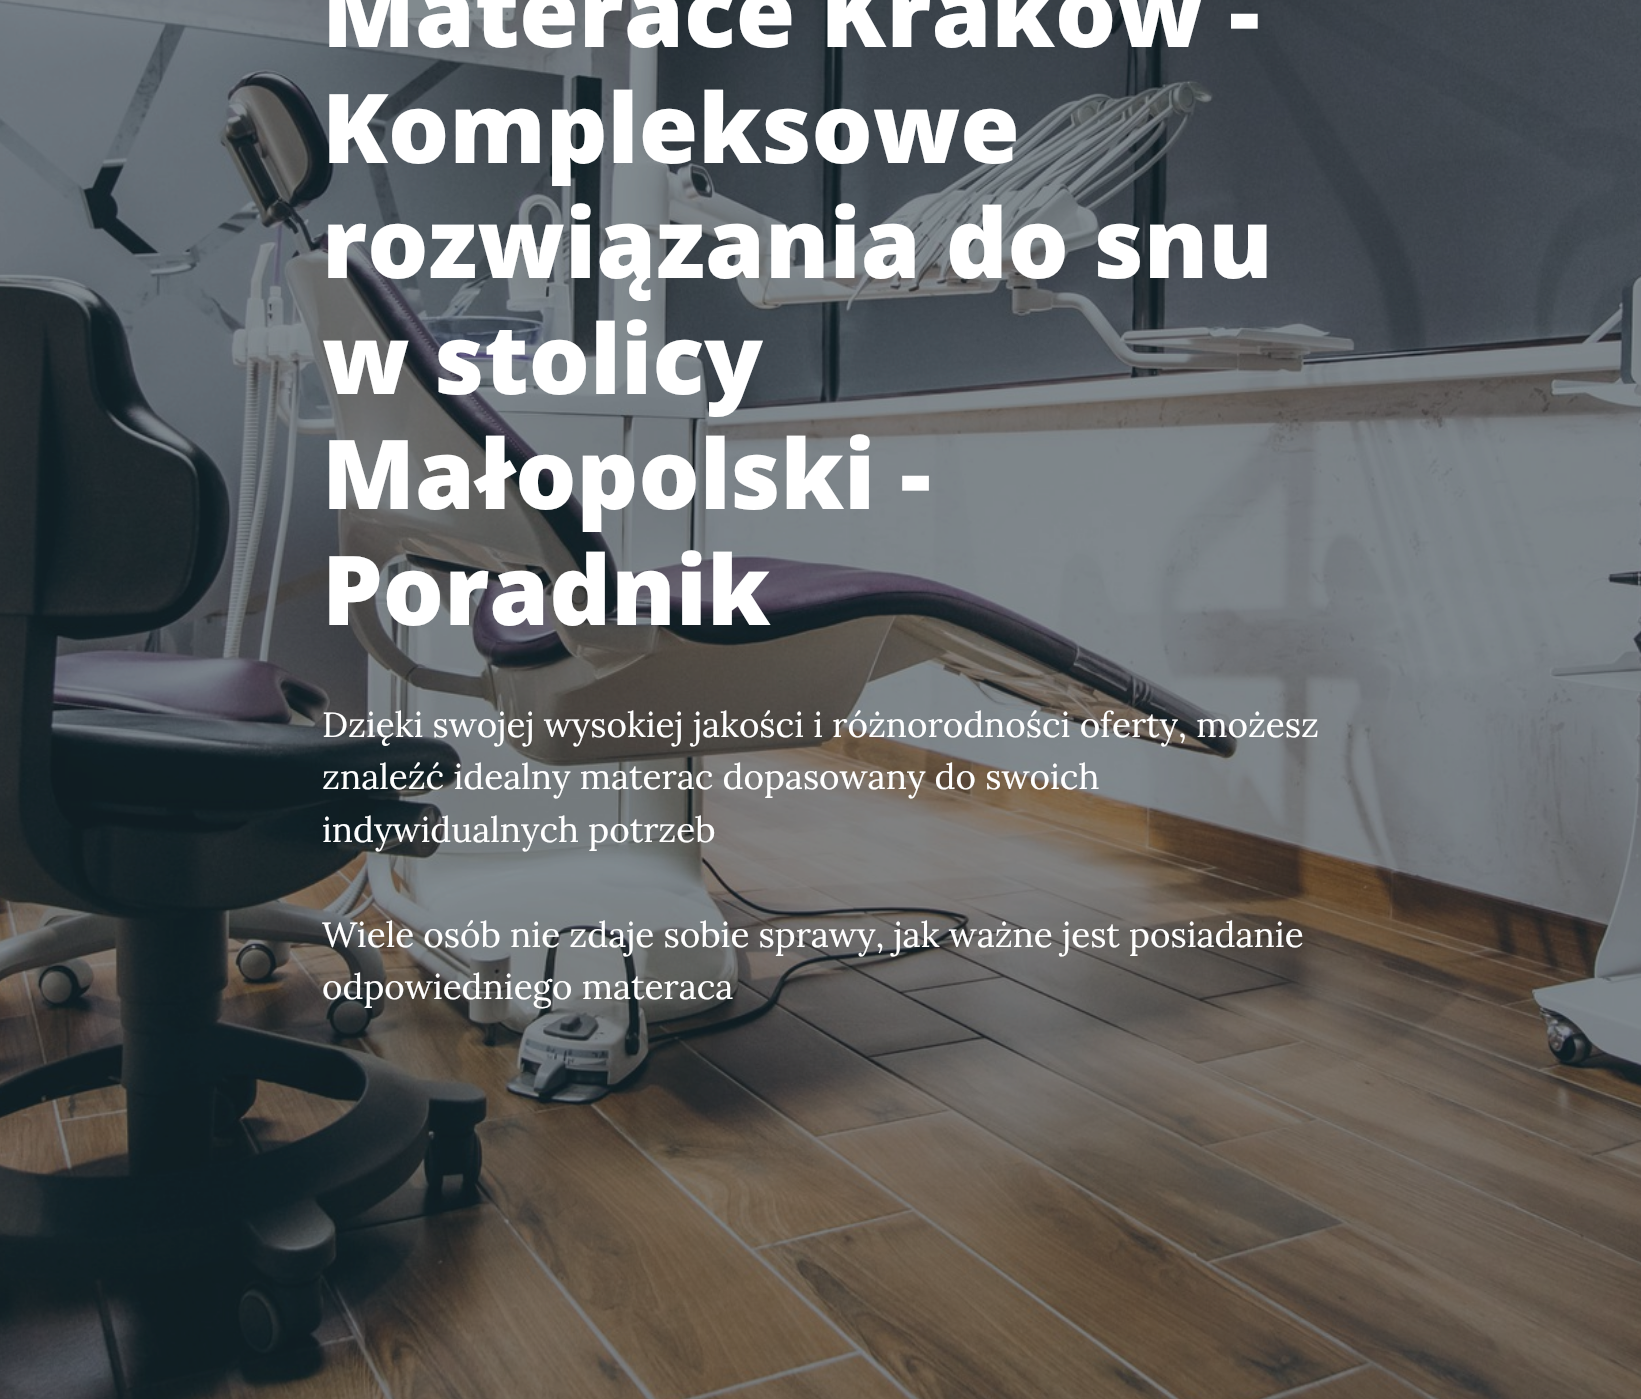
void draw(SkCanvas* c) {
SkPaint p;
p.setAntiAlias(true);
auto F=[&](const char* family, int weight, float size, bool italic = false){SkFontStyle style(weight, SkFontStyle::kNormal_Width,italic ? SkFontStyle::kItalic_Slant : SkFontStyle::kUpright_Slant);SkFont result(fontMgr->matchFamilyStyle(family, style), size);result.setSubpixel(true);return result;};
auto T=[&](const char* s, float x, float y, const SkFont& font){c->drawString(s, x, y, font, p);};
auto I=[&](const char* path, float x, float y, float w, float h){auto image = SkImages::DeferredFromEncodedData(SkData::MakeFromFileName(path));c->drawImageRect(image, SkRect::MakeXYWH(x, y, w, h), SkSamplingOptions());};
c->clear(0xffffffff);
I("1.png",0,0,1641,1399);
auto f1 = F("Open Sans",800,96.25);
p.setColor(0xffffffff);
T("Materace Kraków -",322,47,f1);
T("Kompleksowe",322,163,f1);
T("rozwiązania do snu",322,278,f1);
T("w stolicy",322,394,f1);
T("Małopolski -",322,509,f1);
T("Poradnik",322,625,f1);
auto f2 = F("Lora",400,35);
T("Dzięki swojej wysokiej jakości i różnorodności oferty, możesz",322,737,f2);
T("znaleźć idealny materac dopasowany do swoich",322,789,f2);
T("indywidualnych potrzeb",322,842,f2);
T("Wiele osób nie zdaje sobie sprawy, jak ważne jest posiadanie",322,947,f2);
T("odpowiedniego materaca",322,999,f2);
}
